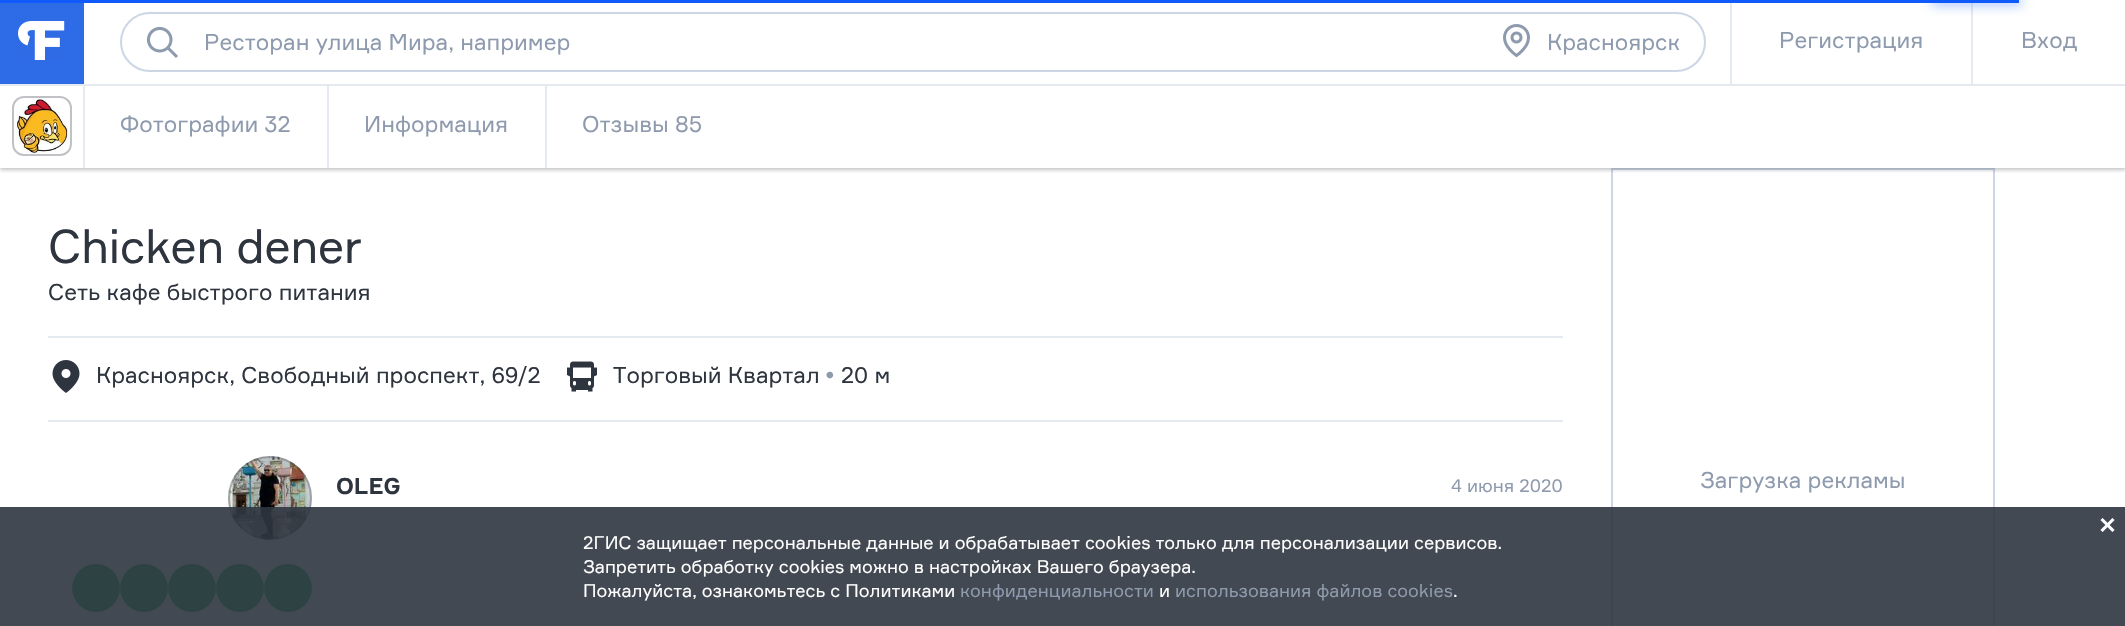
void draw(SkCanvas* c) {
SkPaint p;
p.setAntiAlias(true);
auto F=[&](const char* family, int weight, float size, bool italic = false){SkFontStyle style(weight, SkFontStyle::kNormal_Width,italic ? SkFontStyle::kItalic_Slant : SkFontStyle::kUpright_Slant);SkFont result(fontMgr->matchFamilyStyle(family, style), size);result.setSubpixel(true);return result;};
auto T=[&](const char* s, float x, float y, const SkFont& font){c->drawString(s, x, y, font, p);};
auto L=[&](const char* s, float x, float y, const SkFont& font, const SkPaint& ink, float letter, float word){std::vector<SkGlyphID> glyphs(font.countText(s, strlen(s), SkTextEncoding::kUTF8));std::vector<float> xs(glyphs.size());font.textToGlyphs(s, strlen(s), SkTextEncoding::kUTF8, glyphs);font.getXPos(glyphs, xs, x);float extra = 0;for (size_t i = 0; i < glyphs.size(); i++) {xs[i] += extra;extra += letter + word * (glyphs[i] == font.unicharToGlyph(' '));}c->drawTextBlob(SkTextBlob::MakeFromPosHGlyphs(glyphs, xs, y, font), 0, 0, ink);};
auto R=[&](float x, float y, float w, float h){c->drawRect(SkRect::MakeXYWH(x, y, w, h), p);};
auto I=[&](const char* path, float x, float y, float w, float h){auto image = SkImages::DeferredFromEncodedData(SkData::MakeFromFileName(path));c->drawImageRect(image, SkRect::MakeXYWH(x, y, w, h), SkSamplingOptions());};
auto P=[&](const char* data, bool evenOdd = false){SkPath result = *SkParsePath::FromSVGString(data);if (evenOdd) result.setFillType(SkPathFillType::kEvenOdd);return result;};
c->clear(0xffffffff);
p.setStroke(true);
p.setStrokeWidth(2);
p.setColor(0xffccd6e4);
c->drawRect(SkRect::MakeXYWH(1612,169,382,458),p);
c->save();
c->clipRect(SkRect::MakeXYWH(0,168,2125,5));
p.setStroke(false);
p.setColor(0x4d2f353f);
p.setMaskFilter(SkMaskFilter::MakeBlur(kNormal_SkBlurStyle, 2));
c->drawRect(SkRect::MakeXYWH(0,86,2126,84),p);
p.setMaskFilter(nullptr);
c->restore();
p.setColor(0xffffffff);
R(84,83,2041,1);
p.setColor(0xffe5eaf1);
R(1730,0,2,84);
R(1971,0,2,84);
p.setColor(0xff1059fa);
R(0,0,2019,3);
c->save();
c->clipPath(P("M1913 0h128v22h-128zm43 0h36c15 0 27 .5 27 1v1c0 .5-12 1-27 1h-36c-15 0-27-.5-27-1v-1c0-.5 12-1 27-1z",true),true);
p.setMaskFilter(SkMaskFilter::MakeBlur(kNormal_SkBlurStyle, 6));
c->drawRoundRect(SkRect::MakeXYWH(1932,0,90,3),1,1,p);
p.setMaskFilter(nullptr);
c->restore();
p.setColor(0xffe5eaf1);
R(83,84,2,84);
R(327,84,2,84);
R(545,84,2,84);
c->drawPath(P("M0 84v2h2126v-84v82z"),p);
p.setColor(0xff2e6be6);
R(0,3,84,81);
I("1.png",18,21,48,39);
p.setStroke(true);
p.setColor(0xffccd6e4);
c->drawRoundRect(SkRect::MakeXYWH(121,13,1584,58),29,29,p);
I("2.png",146,26,32,32);
auto f1 = F("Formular",400,22.5);
p.setStroke(false);
p.setColor(0xff8e9aad);
T("Ресторан улица Мира, например",204,50,f1);
I("3.png",1503,24,27,34);
T("Красноярск",1547,50,f1);
T("Регистрация",1779,48,f1);
T("Вход",2021,48,f1);
I("4.png",12,96,58,58);
p.setStroke(true);
p.setColor(0x4d2f353f);
c->drawRoundRect(SkRect::MakeXYWH(13,97,58,58),11,11,p);
p.setStroke(false);
p.setColor(0xff8e9aad);
T("Фотографии 32",120,132,f1);
T("Информация",364,132,f1);
T("Отзывы 85",582,132,f1);
auto f2 = F("Formular",400,46.5);
p.setColor(0xff2f353f);
L("Chicken dener",48,263,f2,p,-.5,0);
T("Сеть кафе быстрого питания",48,300,f1);
p.setColor(0xffe5eaf1);
R(48,336,1515,2);
I("5.png",52,360,28,33);
p.setColor(0xff2f353f);
T("Красноярск, Свободный проспект, 69/2",96,383,f1);
I("6.png",567,361,30,31);
T("Торговый Квартал",613,383,f1);
p.setColor(0xff8e9aad);
T("•",825,383,f1);
p.setColor(0xff2f353f);
T("20 м",841,383,f1);
p.setColor(0xffe5eaf1);
R(48,420,1515,2);
I("7.png",228,456,84,84);
p.setStroke(true);
p.setColor(0x4d2f353f);
c->drawCircle(270,498,41,p);
auto f3 = F("Formular",700,22.5);
p.setStroke(false);
p.setColor(0xff2f353f);
T("OLEG",336,494,f3);
auto f4 = F("Formular",400,18);
p.setColor(0xff8e9aad);
T("4 июня 2020",1451,492,f4);
p.setColor(0xff1cbf60);
c->drawCircle(96,588,24,p);
c->drawCircle(144,588,24,p);
c->drawCircle(192,588,24,p);
c->drawCircle(240,588,24,p);
c->drawCircle(288,588,24,p);
p.setColor(0xff8e9aad);
T("Загрузка рекламы",1700,488,f1);
p.setColor(0xe62f353f);
R(0,507,2125,119);
I("8.png",2100,518,15,14);
p.setColor(0xffffffff);
T("2ГИС защищает персональные данные и обрабатывает cookies только для персонализации сервисов.",583,549,f4);
T("Запретить обработку cookies можно в настройках Вашего браузера.",583,573,f4);
T("Пожалуйста, ознакомьтесь с Политиками",583,597,f4);
p.setColor(0xff8e9aad);
T("конфиденциальности",960,597,f4);
p.setColor(0xffffffff);
T("и",1159,597,f4);
p.setColor(0xff8e9aad);
T("использования файлов cookies",1175,597,f4);
p.setColor(0xffffffff);
T(".",1453,597,f4);
}
